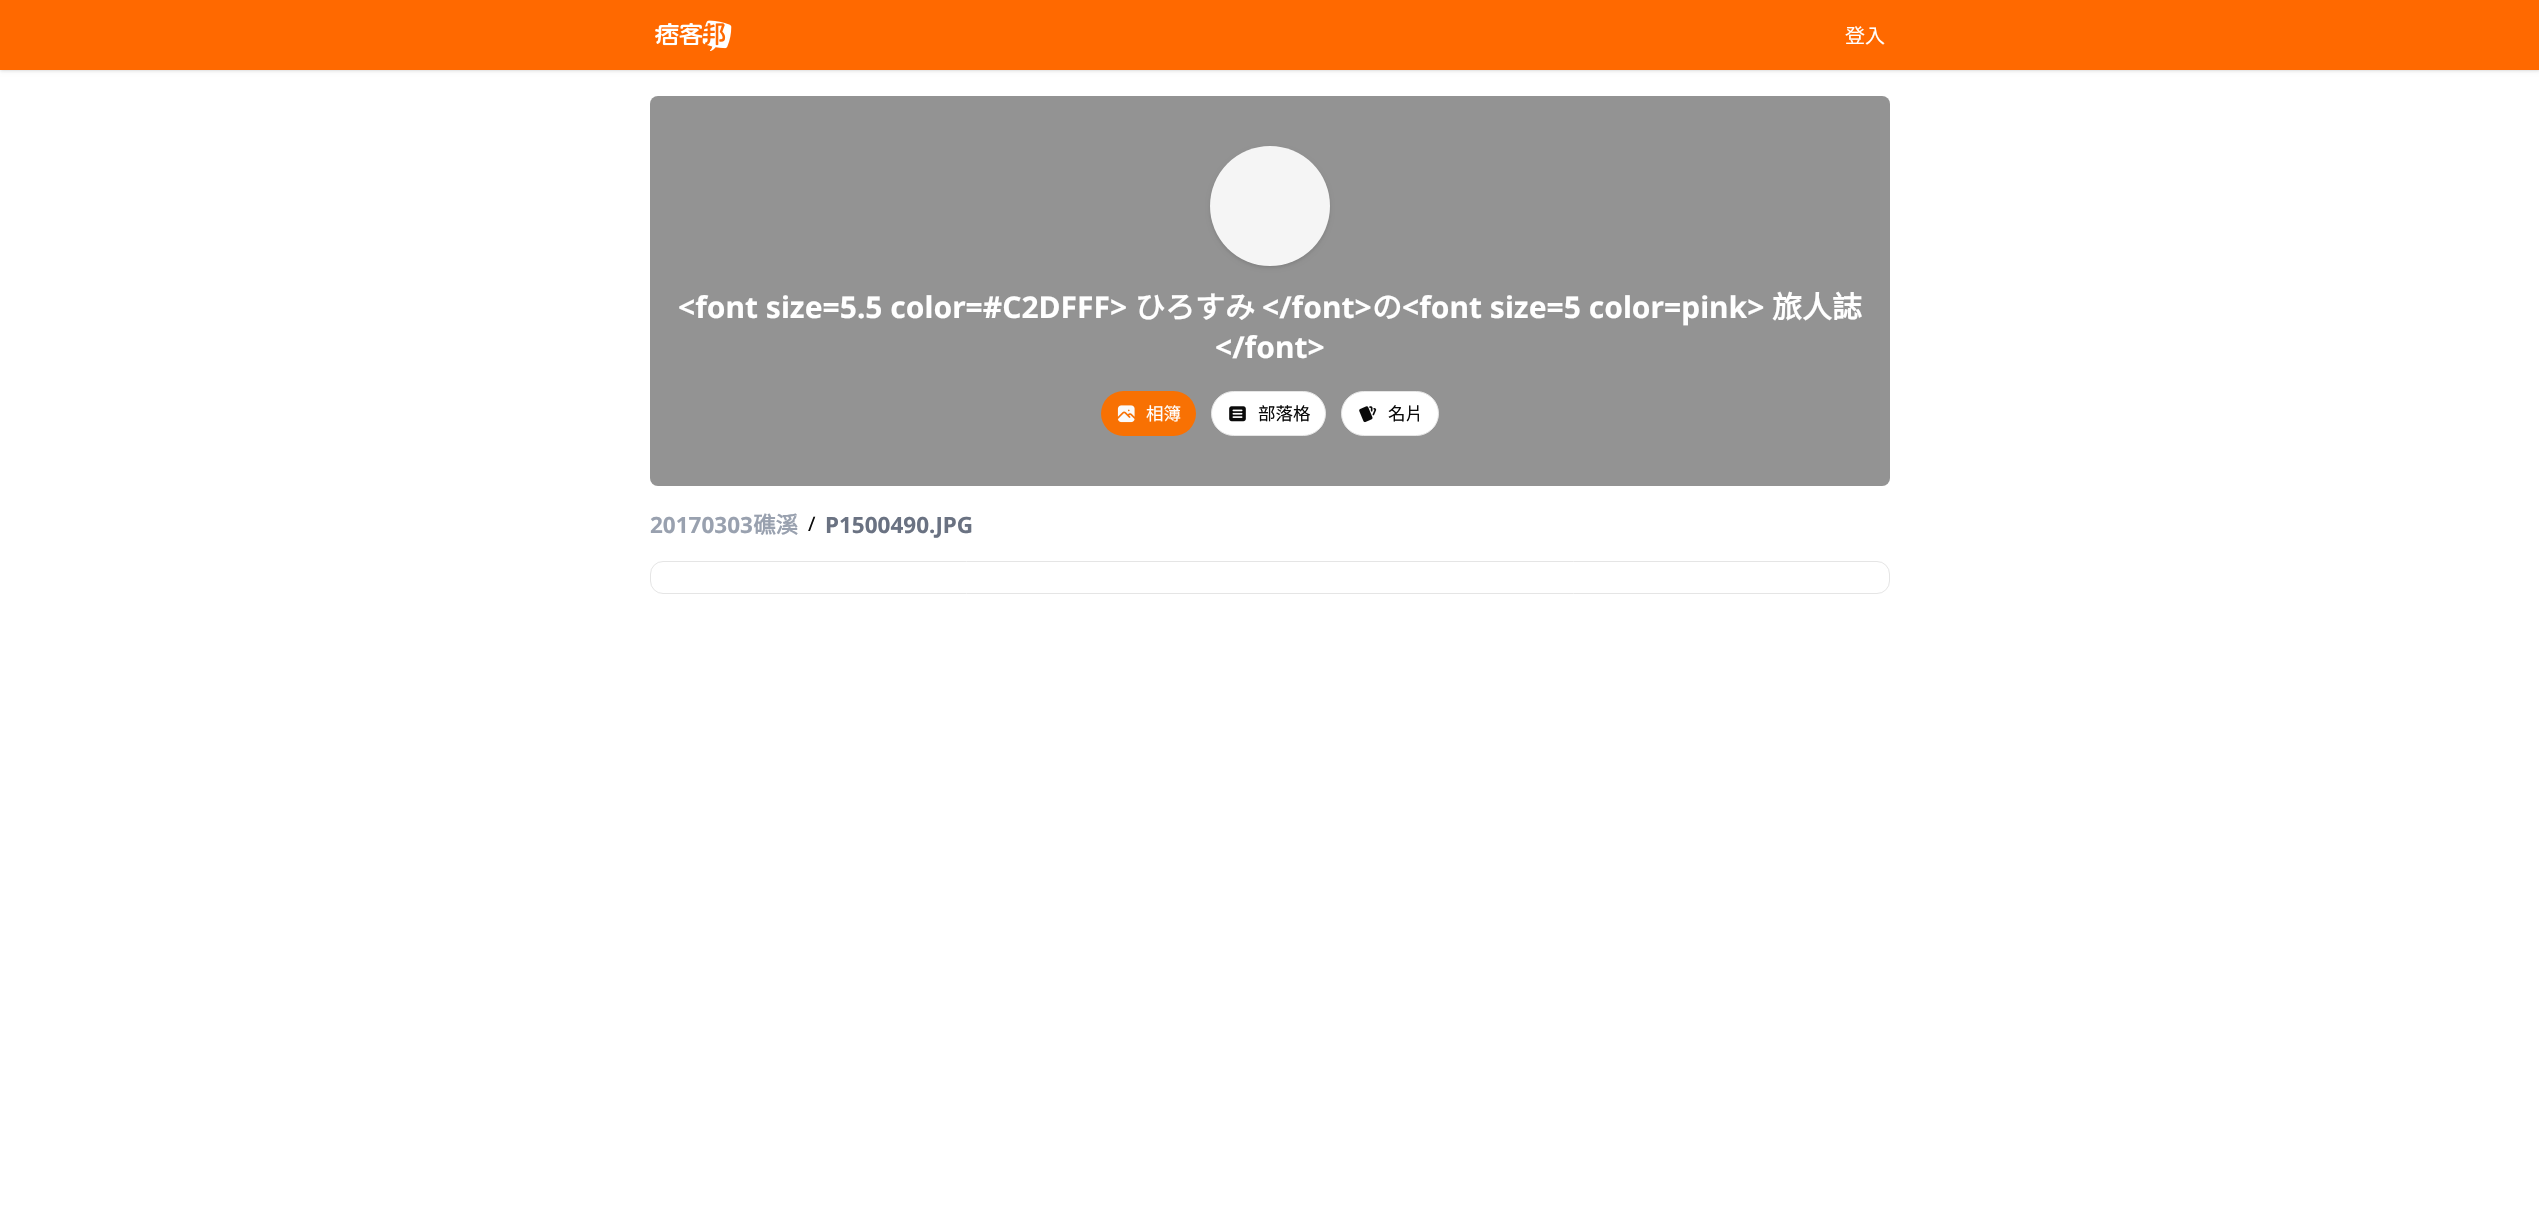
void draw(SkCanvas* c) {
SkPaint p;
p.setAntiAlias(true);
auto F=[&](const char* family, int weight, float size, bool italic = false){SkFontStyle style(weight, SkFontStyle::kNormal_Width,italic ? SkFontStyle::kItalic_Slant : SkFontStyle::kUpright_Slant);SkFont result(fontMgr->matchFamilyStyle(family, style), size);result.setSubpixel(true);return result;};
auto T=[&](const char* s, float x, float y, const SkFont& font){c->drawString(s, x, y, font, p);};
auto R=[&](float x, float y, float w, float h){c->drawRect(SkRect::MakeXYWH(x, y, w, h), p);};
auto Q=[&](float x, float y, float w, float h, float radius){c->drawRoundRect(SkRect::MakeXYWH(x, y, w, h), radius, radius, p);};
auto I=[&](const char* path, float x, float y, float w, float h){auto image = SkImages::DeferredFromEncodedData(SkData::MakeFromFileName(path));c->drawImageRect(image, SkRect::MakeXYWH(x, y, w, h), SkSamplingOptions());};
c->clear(0xffffffff);
p.setColor(0x1a000000);
p.setMaskFilter(SkMaskFilter::MakeBlur(kNormal_SkBlurStyle, 1));
c->drawRect(SkRect::MakeXYWH(1,3,2538,67),p);
p.setMaskFilter(nullptr);
p.setMaskFilter(SkMaskFilter::MakeBlur(kNormal_SkBlurStyle, 2));
c->drawRect(SkRect::MakeXYWH(0,1,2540,70),p);
p.setMaskFilter(nullptr);
p.setColor(0xffff6900);
R(0,0,2539,70);
I("1.png",655,20,77,31);
auto f1 = F("Noto Sans CJK TC",400,20);
p.setColor(0xffffffff);
T("登入",1845,43,f1);
p.setColor(0xfff5f5f5);
Q(650,96,1240,390,8);
p.setColor(0x66000000);
Q(650,96,1240,390,8);
p.setColor(0x1a000000);
p.setMaskFilter(SkMaskFilter::MakeBlur(kNormal_SkBlurStyle, 1));
c->drawRoundRect(SkRect::MakeXYWH(1211,149,118,117),58.5,58.5,p);
p.setMaskFilter(nullptr);
p.setMaskFilter(SkMaskFilter::MakeBlur(kNormal_SkBlurStyle, 2));
c->drawRoundRect(SkRect::MakeXYWH(1210,148,120,120),60,60,p);
p.setMaskFilter(nullptr);
p.setColor(0xfff5f5f5);
c->drawCircle(1270,206,60,p);
auto f2 = F("Noto Sans",700,30);
p.setColor(0xffffffff);
T("<font size=5.5 color=#C2DFFF>",678,318,f2);
auto f3 = F("Noto Sans CJK TC",700,30);
T("ひろすみ",1135,318,f3);
T("</font>",1262,318,f2);
T("の",1372,318,f3);
T("<font size=5 color=pink>",1402,318,f2);
T("旅人誌",1772,318,f3);
T("</font>",1215,358,f2);
p.setColor(0xfff87103);
Q(1101,391,95,45,22.5);
I("2.png",1117,405,18,18);
auto f4 = F("Noto Sans CJK TC",400,17.5);
p.setColor(0xffffffff);
T("相簿",1146,420,f4);
c->drawRoundRect(SkRect::MakeXYWH(1211.5,391.5,114,44),22,22,p);
p.setStroke(true);
p.setStrokeWidth(1);
p.setColor(0xffe5e5e5);
c->drawRoundRect(SkRect::MakeXYWH(1211.5,391.5,114,44),22,22,p);
I("3.png",1229,406,17,16);
p.setStroke(false);
p.setColor(0xff0a0a0a);
T("部落格",1258,420,f4);
p.setColor(0xffffffff);
c->drawRoundRect(SkRect::MakeXYWH(1341.5,391.5,97,44),22,22,p);
p.setStroke(true);
p.setColor(0xffe5e5e5);
c->drawRoundRect(SkRect::MakeXYWH(1341.5,391.5,97,44),22,22,p);
I("4.png",1359,406,18,17);
p.setStroke(false);
p.setColor(0xff0a0a0a);
T("名片",1388,420,f4);
auto f5 = F("Noto Sans",700,22.5);
p.setColor(0xff99a1af);
T("20170303",650,533,f5);
auto f6 = F("Noto Sans CJK TC",700,22.5);
T("礁溪",753,533,f6);
auto f7 = F("Noto Sans",400,20);
p.setColor(0xff0a0a0a);
T("/",808,531,f7);
p.setColor(0xff6a7282);
T("P1500490.JPG",825,533,f5);
p.setStroke(true);
p.setColor(0xffe5e5e5);
c->drawRoundRect(SkRect::MakeXYWH(650.5,561.5,1239,32),12.5,12.5,p);
}
